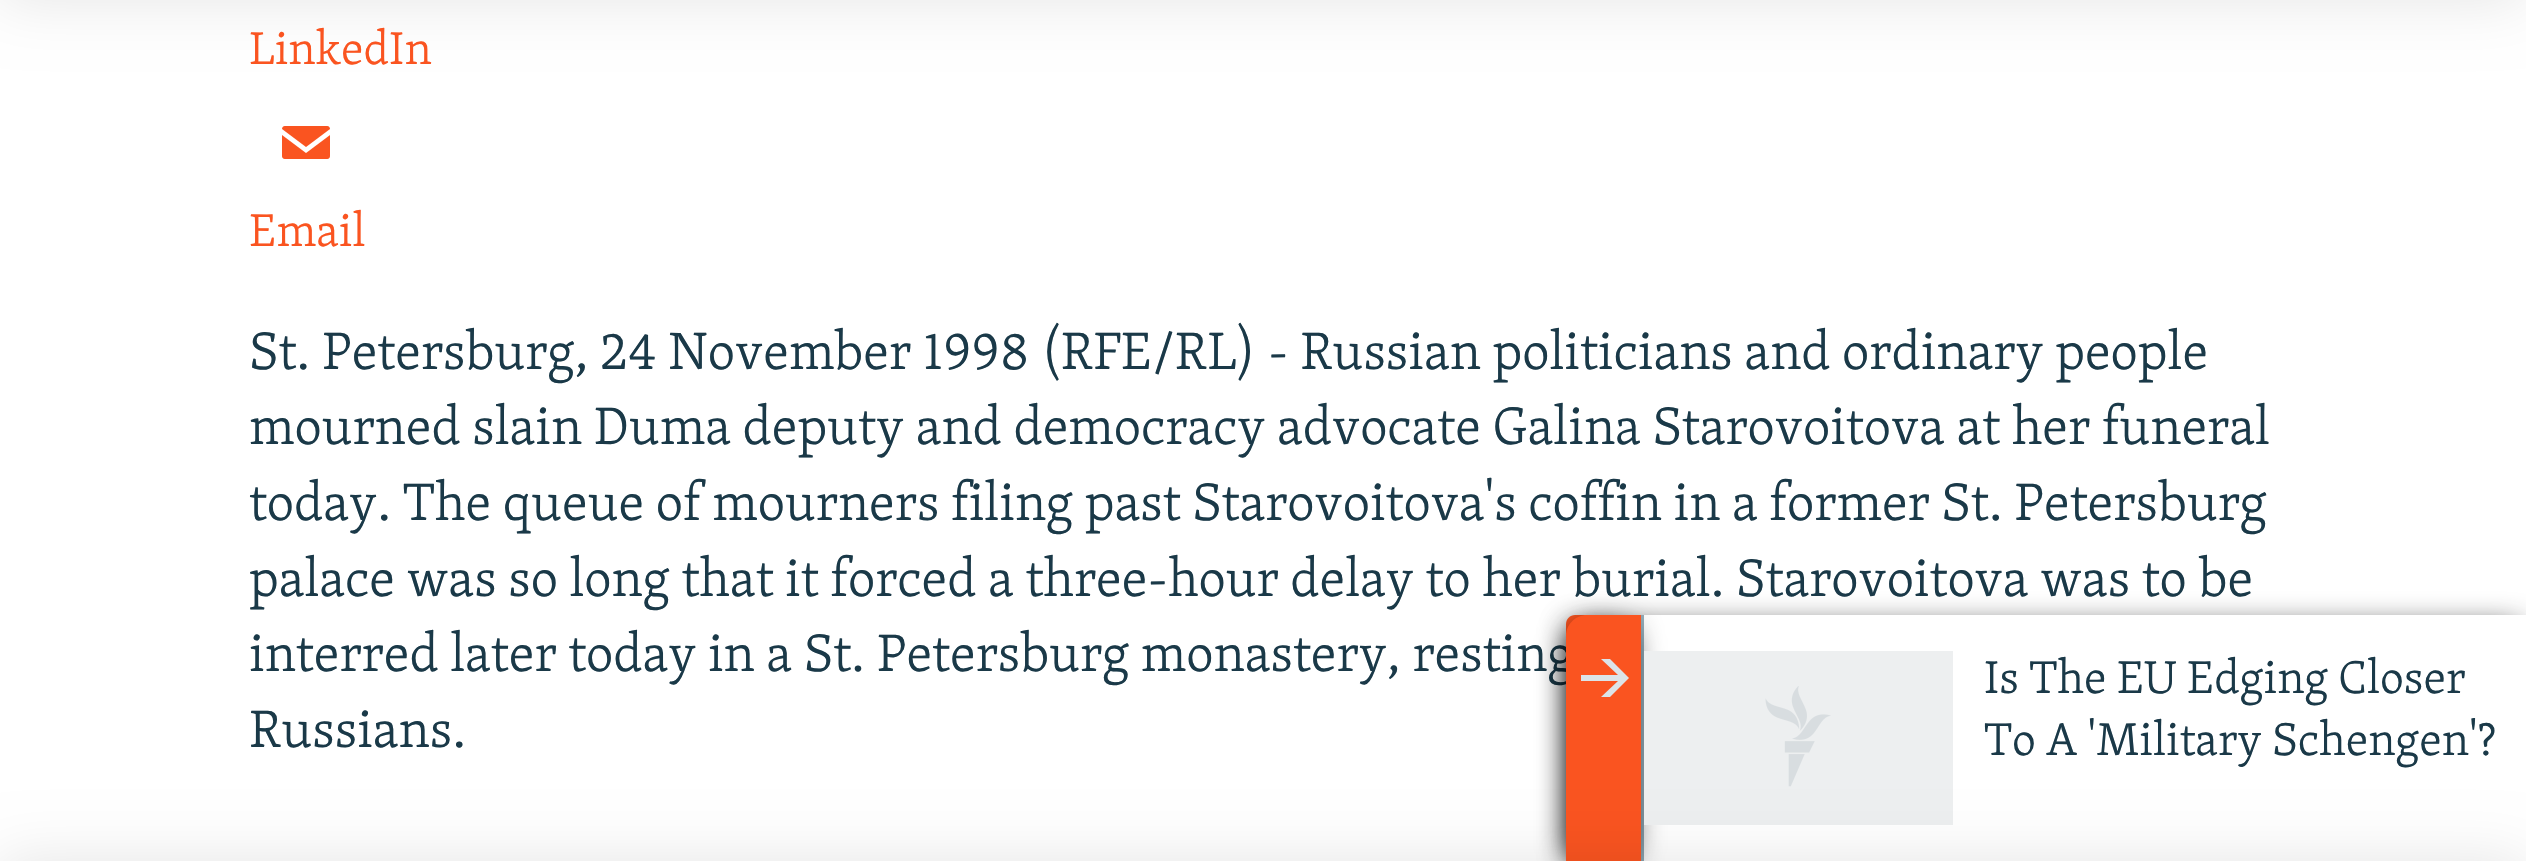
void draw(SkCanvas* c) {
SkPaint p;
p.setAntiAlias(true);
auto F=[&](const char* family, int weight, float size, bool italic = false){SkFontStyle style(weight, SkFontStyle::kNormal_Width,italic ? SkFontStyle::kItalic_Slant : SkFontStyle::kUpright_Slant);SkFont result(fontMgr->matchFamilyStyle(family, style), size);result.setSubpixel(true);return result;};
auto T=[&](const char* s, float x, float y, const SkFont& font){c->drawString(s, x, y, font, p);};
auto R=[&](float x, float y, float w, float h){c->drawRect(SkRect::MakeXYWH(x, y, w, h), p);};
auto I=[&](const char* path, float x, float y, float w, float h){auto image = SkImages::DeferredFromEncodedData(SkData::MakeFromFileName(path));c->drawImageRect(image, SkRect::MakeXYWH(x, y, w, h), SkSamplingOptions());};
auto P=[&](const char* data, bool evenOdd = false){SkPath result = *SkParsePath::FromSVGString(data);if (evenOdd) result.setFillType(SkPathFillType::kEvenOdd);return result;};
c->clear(0xffffffff);
p.setColor(0x1a000000);
p.setMaskFilter(SkMaskFilter::MakeBlur(kNormal_SkBlurStyle, 30));
c->drawRect(SkRect::MakeXYWH(0,-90,2526,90),p);
p.setMaskFilter(nullptr);
auto f1 = F("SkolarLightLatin",300,54);
p.setColor(0xff1a3948);
T("interred later today in a St. Petersburg monastery, resting",249,671,f1);
p.setColor(0xd9000000);
p.setMaskFilter(SkMaskFilter::MakeBlur(kNormal_SkBlurStyle, 15));
c->drawRoundRect(SkRect::MakeXYWH(1572,627,948,234),3,3,p);
p.setMaskFilter(nullptr);
p.setColor(0xfffa5420);
c->drawPath(P("M1575 615h951v246h-960v-237c0-5 4-9 9-9z"),p);
p.setColor(0xffffffff);
R(1644,615,882,246);
p.setColor(0xff95adb9);
R(1641,615,3,246);
c->save();
c->clipPath(P("M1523 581h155v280h-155zm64 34h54v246h-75v-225c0-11.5 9.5-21 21-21z",true),true);
p.setColor(0xd9000000);
p.setMaskFilter(SkMaskFilter::MakeBlur(kNormal_SkBlurStyle, 15));
c->drawRoundRect(SkRect::MakeXYWH(1569,627,63,234),15,15,p);
p.setMaskFilter(nullptr);
c->restore();
p.setColor(0xffedeff0);
R(1644,651,309,174);
I("2.png",1765,686,66,101);
p.setColor(0x1a000000);
p.setMaskFilter(SkMaskFilter::MakeBlur(kNormal_SkBlurStyle, 30));
c->drawRect(SkRect::MakeXYWH(0,861,2526,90),p);
p.setMaskFilter(nullptr);
auto f2 = F("SkolarLightLatin",300,47.25);
p.setColor(0xfffa5420);
T("LinkedIn",249,64,f2);
I("1.png",282,126,48,33);
T("Email",249,246,f2);
p.setColor(0xff1a3948);
T("St. Petersburg, 24 November 1998 (RFE/RL) - Russian politicians and ordinary people",249,369,f1);
T("mourned slain Duma deputy and democracy advocate Galina Starovoitova at her funeral",249,444,f1);
T("today. The queue of mourners filing past Starovoitova's coffin in a former St. Petersburg",249,520,f1);
T("palace was so long that it forced a three-hour delay to her burial. Starovoitova was to be",249,596,f1);
T("Russians.",249,747,f1);
p.setColor(0xffdce4e8);
c->drawPath(P("M1629 678l-19-19h-9l17 16h-37v6h37l-17 16h9z"),p);
p.setColor(0xff1a3948);
T("Is The EU Edging Closer",1984,693,f2);
T("To A 'Military Schengen'?",1984,755,f2);
}
